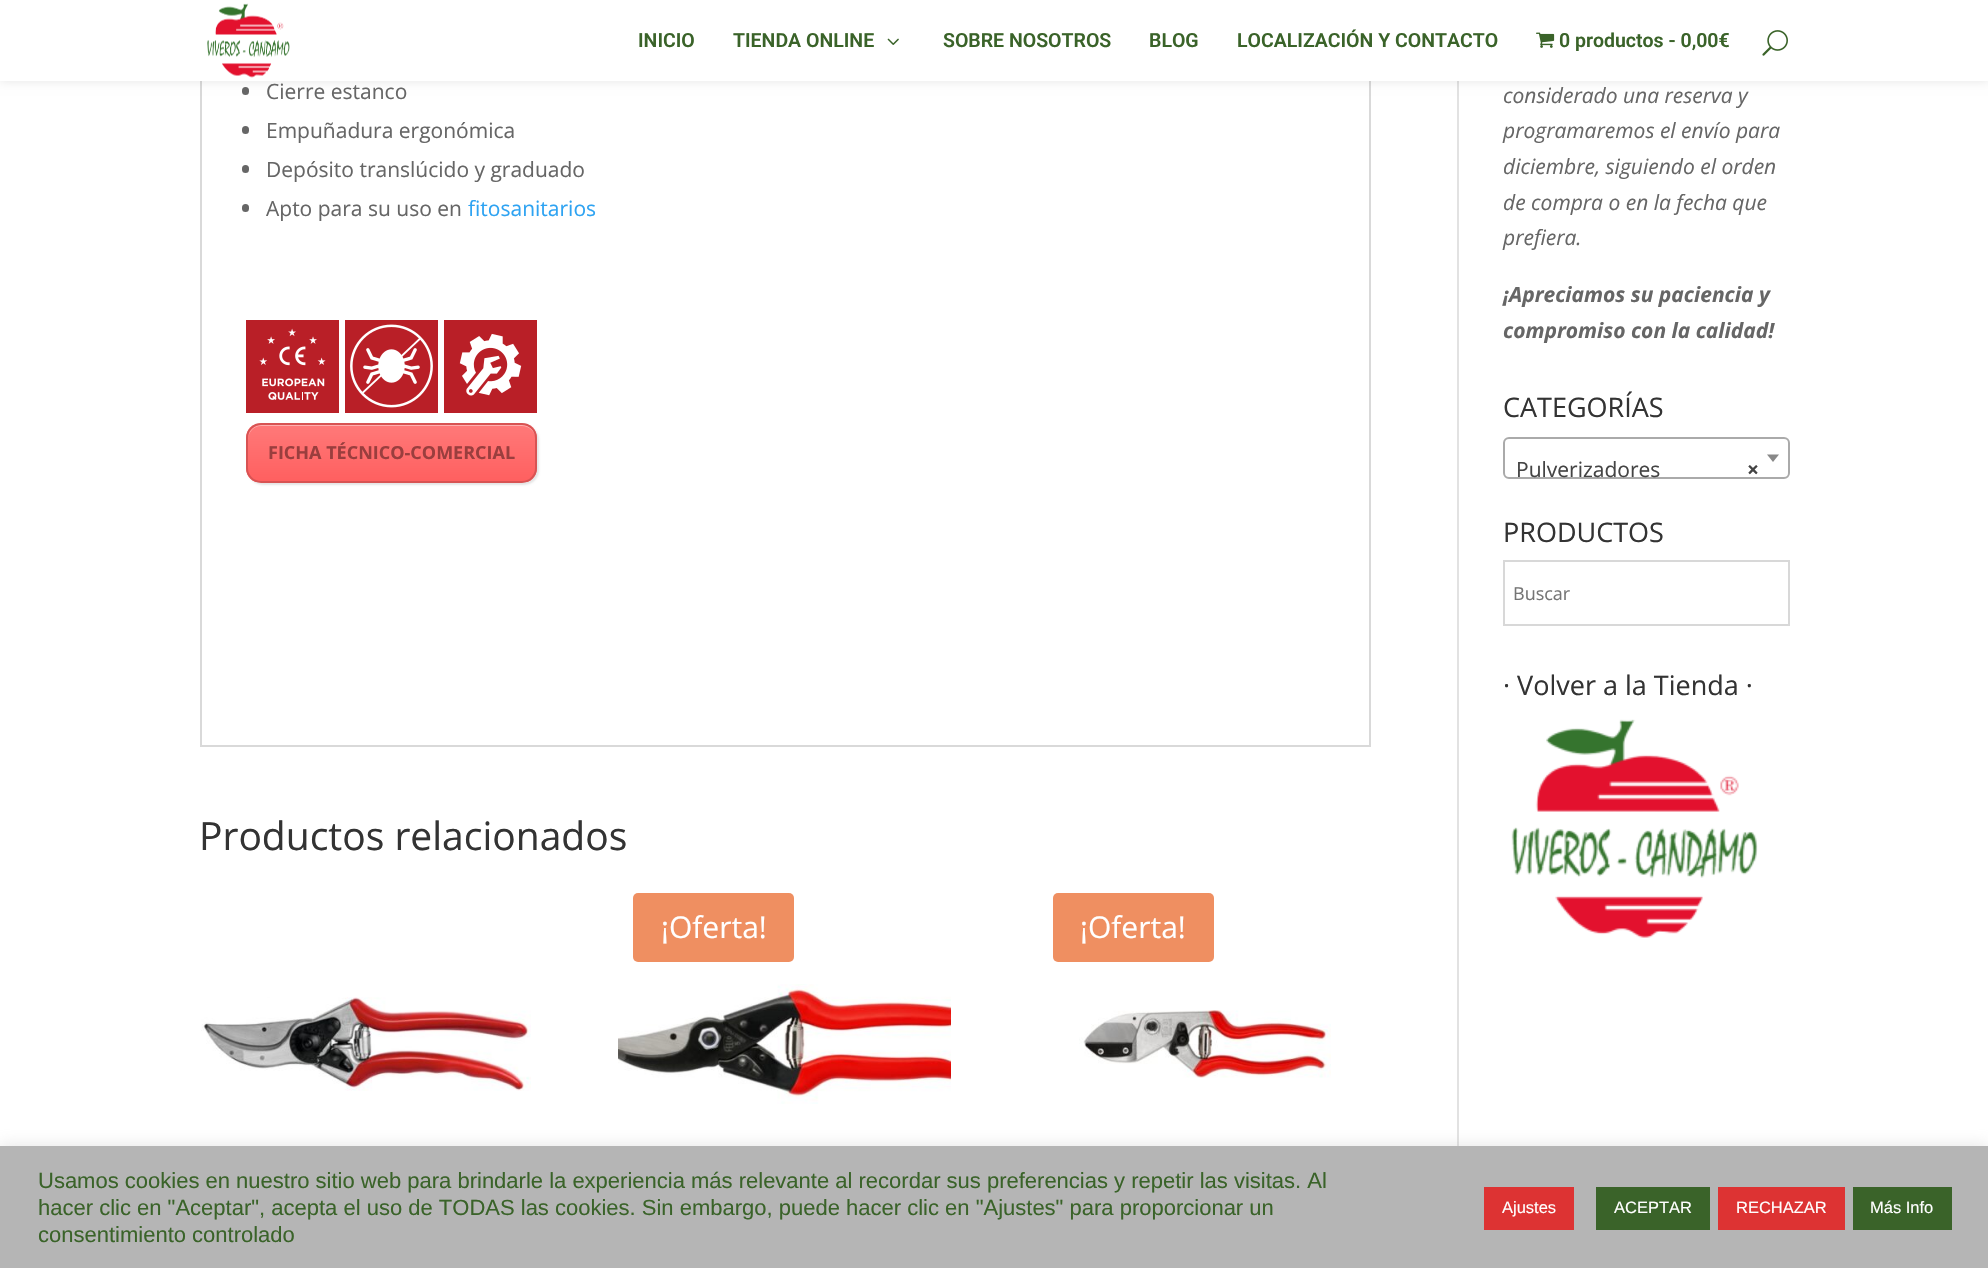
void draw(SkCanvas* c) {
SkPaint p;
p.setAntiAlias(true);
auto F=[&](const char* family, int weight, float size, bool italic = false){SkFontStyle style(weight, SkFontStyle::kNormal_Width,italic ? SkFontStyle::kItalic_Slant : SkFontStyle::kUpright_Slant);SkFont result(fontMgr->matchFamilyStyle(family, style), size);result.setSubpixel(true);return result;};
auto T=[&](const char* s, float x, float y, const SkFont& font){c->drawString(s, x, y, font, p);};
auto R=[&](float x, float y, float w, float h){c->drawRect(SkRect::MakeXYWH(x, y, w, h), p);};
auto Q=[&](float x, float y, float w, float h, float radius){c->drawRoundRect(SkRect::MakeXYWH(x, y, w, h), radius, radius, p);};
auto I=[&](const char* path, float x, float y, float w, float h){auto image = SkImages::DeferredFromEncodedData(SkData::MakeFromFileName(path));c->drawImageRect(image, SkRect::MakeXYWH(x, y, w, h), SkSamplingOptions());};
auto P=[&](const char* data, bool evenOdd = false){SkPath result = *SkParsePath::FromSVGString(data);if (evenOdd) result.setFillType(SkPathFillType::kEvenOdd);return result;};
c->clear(0xffffffff);
p.setColor(0xffe2e2e2);
R(1457,81,2,1065);
p.setStroke(true);
p.setStrokeWidth(2);
p.setColor(0xffd9d9d9);
c->drawRect(SkRect::MakeXYWH(201,-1,1169,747),p);
p.setStroke(false);
p.setColor(0xff666666);
Q(242,87,7,8,3.5);
p.setColor(0x1a000000);
p.setMaskFilter(SkMaskFilter::MakeBlur(kNormal_SkBlurStyle, 5));
c->drawRect(SkRect::MakeXYWH(0,0,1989,81),p);
p.setMaskFilter(nullptr);
p.setColor(0xffffffff);
R(0,0,1988,81);
I("1.png",207,3,83,75);
auto f1 = F("Roboto",600,19.5);
p.setColor(0xff3a6329);
T("INICIO",638,47,f1);
T("TIENDA ONLINE",733,47,f1);
I("2.png",887,38,12,7);
T("SOBRE NOSOTROS",943,47,f1);
T("BLOG",1149,47,f1);
T("LOCALIZACIÓN Y CONTACTO",1237,47,f1);
I("3.png",1536,32,19,16);
T("0 productos - 0,00€",1559,47,f1);
I("4.png",1762,30,26,26);
auto f2 = F("Open Sans",400,21);
p.setColor(0xff666666);
T("Cierre estanco",266,99,f2);
Q(242,126,7,8,3.5);
T("Empuñadura ergonómica",266,138,f2);
Q(242,165,7,8,3.5);
T("Depósito translúcido y graduado",266,177,f2);
Q(242,204,7,8,3.5);
T("Apto para su uso en",266,216,f2);
p.setColor(0xff2ea3f2);
T("fitosanitarios",468,216,f2);
I("5.png",246,320,93,93);
I("6.png",345,320,93,93);
I("7.png",444,320,93,93);
p.setColor(0x1a000000);
p.setMaskFilter(SkMaskFilter::MakeBlur(kNormal_SkBlurStyle, 1));
c->drawRoundRect(SkRect::MakeXYWH(248,425,291,60),15,15,p);
p.setMaskFilter(nullptr);
c->save();
c->clipPath(P("M261 423h261c8.5 0 15 6.5 15 15v30c0 8.5-6.5 15-15 15h-261c-8.5 0-15-6.5-15-15v-30c0-8.5 6.5-15 15-15z"),true);
{
const SkColor colors[] = {0xffff7979,0xffff5f5f};
const float stops[] = {0,1};
const SkPoint ends[] = {{392,425}, {392,482}};
p.setShader(SkGradientShader::MakeLinear(ends, colors, stops, 2, SkTileMode::kClamp));
p.setAlpha(255);
}
R(246,425,291,57);
c->restore();
p.setShader(nullptr);
p.setColor(0x66ffffff);
c->drawPath(P("M261 426h261c7 0 14 6 14 14v-1c0-8-6-14-14-14h-260c-8 0-14 6-14 14v1c0-8 6-14 13-14z"),p);
p.setStroke(true);
p.setColor(0xffd85353);
c->drawRoundRect(SkRect::MakeXYWH(247,424,289,58),14,14,p);
auto f3 = F("Open Sans",700,18);
p.setStroke(false);
p.setColor(0xff9a3e3e);
T("FICHA TÉCNICO-COMERCIAL",268,459,f3);
auto f4 = F("Open Sans",400,39);
p.setColor(0xff333333);
T("Productos relacionados",199,850,f4);
p.setColor(0xffef8f61);
Q(633,893,161,69,5);
auto f5 = F("Open Sans",400,30);
p.setColor(0xffffffff);
T("¡Oferta!",661,938,f5);
I("8.png",618,984,333,120);
p.setColor(0xffef8f61);
Q(1053,893,161,69,5);
p.setColor(0xffffffff);
T("¡Oferta!",1080,938,f5);
I("9.png",1079,1010,252,68);
I("10.png",201,997,330,94);
auto f6 = F("Open Sans",400,21,true);
p.setColor(0xff666666);
T("considerado una reserva y",1503,103,f6);
T("programaremos el envío para",1503,138,f6);
T("diciembre, siguiendo el orden",1503,174,f6);
T("de compra o en la fecha que",1503,210,f6);
T("prefiera.",1503,245,f6);
auto f7 = F("Open Sans",700,21,true);
T("¡Apreciamos su paciencia y",1503,302,f7);
T("compromiso con la calidad!",1503,338,f7);
auto f8 = F("Open Sans",400,27);
p.setColor(0xff333333);
T("CATEGORÍAS",1503,417,f8);
p.setStroke(true);
p.setColor(0xffaaaaaa);
c->drawRoundRect(SkRect::MakeXYWH(1504,438,285,40),5,5,p);
p.setStroke(false);
p.setColor(0xff888888);
c->drawPath(P("M1767 454.5h12l-6 7.5z"),p);
p.setColor(0xff444444);
T("Pulverizadores",1516,477,f2);
auto f9 = F("Open Sans",700,21);
T("×",1747,477,f9);
p.setColor(0xff333333);
T("PRODUCTOS",1503,542,f8);
p.setStroke(true);
p.setColor(0xffd8d8d8);
c->drawRect(SkRect::MakeXYWH(1504,561,285,64),p);
auto f10 = F("Open Sans",400,18);
p.setStroke(false);
p.setColor(0xff757575);
T("Buscar",1513,600,f10);
p.setColor(0xff333333);
T("· Volver a la Tienda ·",1503,695,f8);
I("11.png",1511,719,247,219);
p.setColor(0x4dacabab);
p.setMaskFilter(SkMaskFilter::MakeBlur(kNormal_SkBlurStyle, 7.5));
c->drawRect(SkRect::MakeXYWH(0,1145,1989,123),p);
p.setMaskFilter(nullptr);
p.setColor(0xffb5b5b5);
R(0,1146,1988,122);
auto f11 = F("Liberation Sans",400,22);
p.setColor(0xff3a6329);
T("Usamos cookies en nuestro sitio web para brindarle la experiencia más relevante al recordar sus preferencias y repetir las visitas. Al",38,1188,f11);
T("hacer clic en \"Aceptar\", acepta el uso de TODAS las cookies. Sin embargo, puede hacer clic en \"Ajustes\" para proporcionar un",38,1215,f11);
T("consentimiento controlado",38,1242,f11);
p.setColor(0xffdd3333);
R(1484,1187,90,43);
auto f12 = F("Liberation Sans",400,16.5);
p.setColor(0xffffffff);
T("Ajustes",1502,1213,f12);
p.setColor(0xff3a6329);
R(1596,1187,114,43);
p.setColor(0xffffffff);
T("ACEPTAR",1614,1213,f12);
p.setColor(0xffdd3333);
R(1718,1187,127,43);
p.setColor(0xffffffff);
T("RECHAZAR",1736,1213,f12);
p.setColor(0xff3a6329);
R(1853,1187,99,43);
p.setColor(0xffffffff);
T("Más Info",1870,1213,f12);
}
